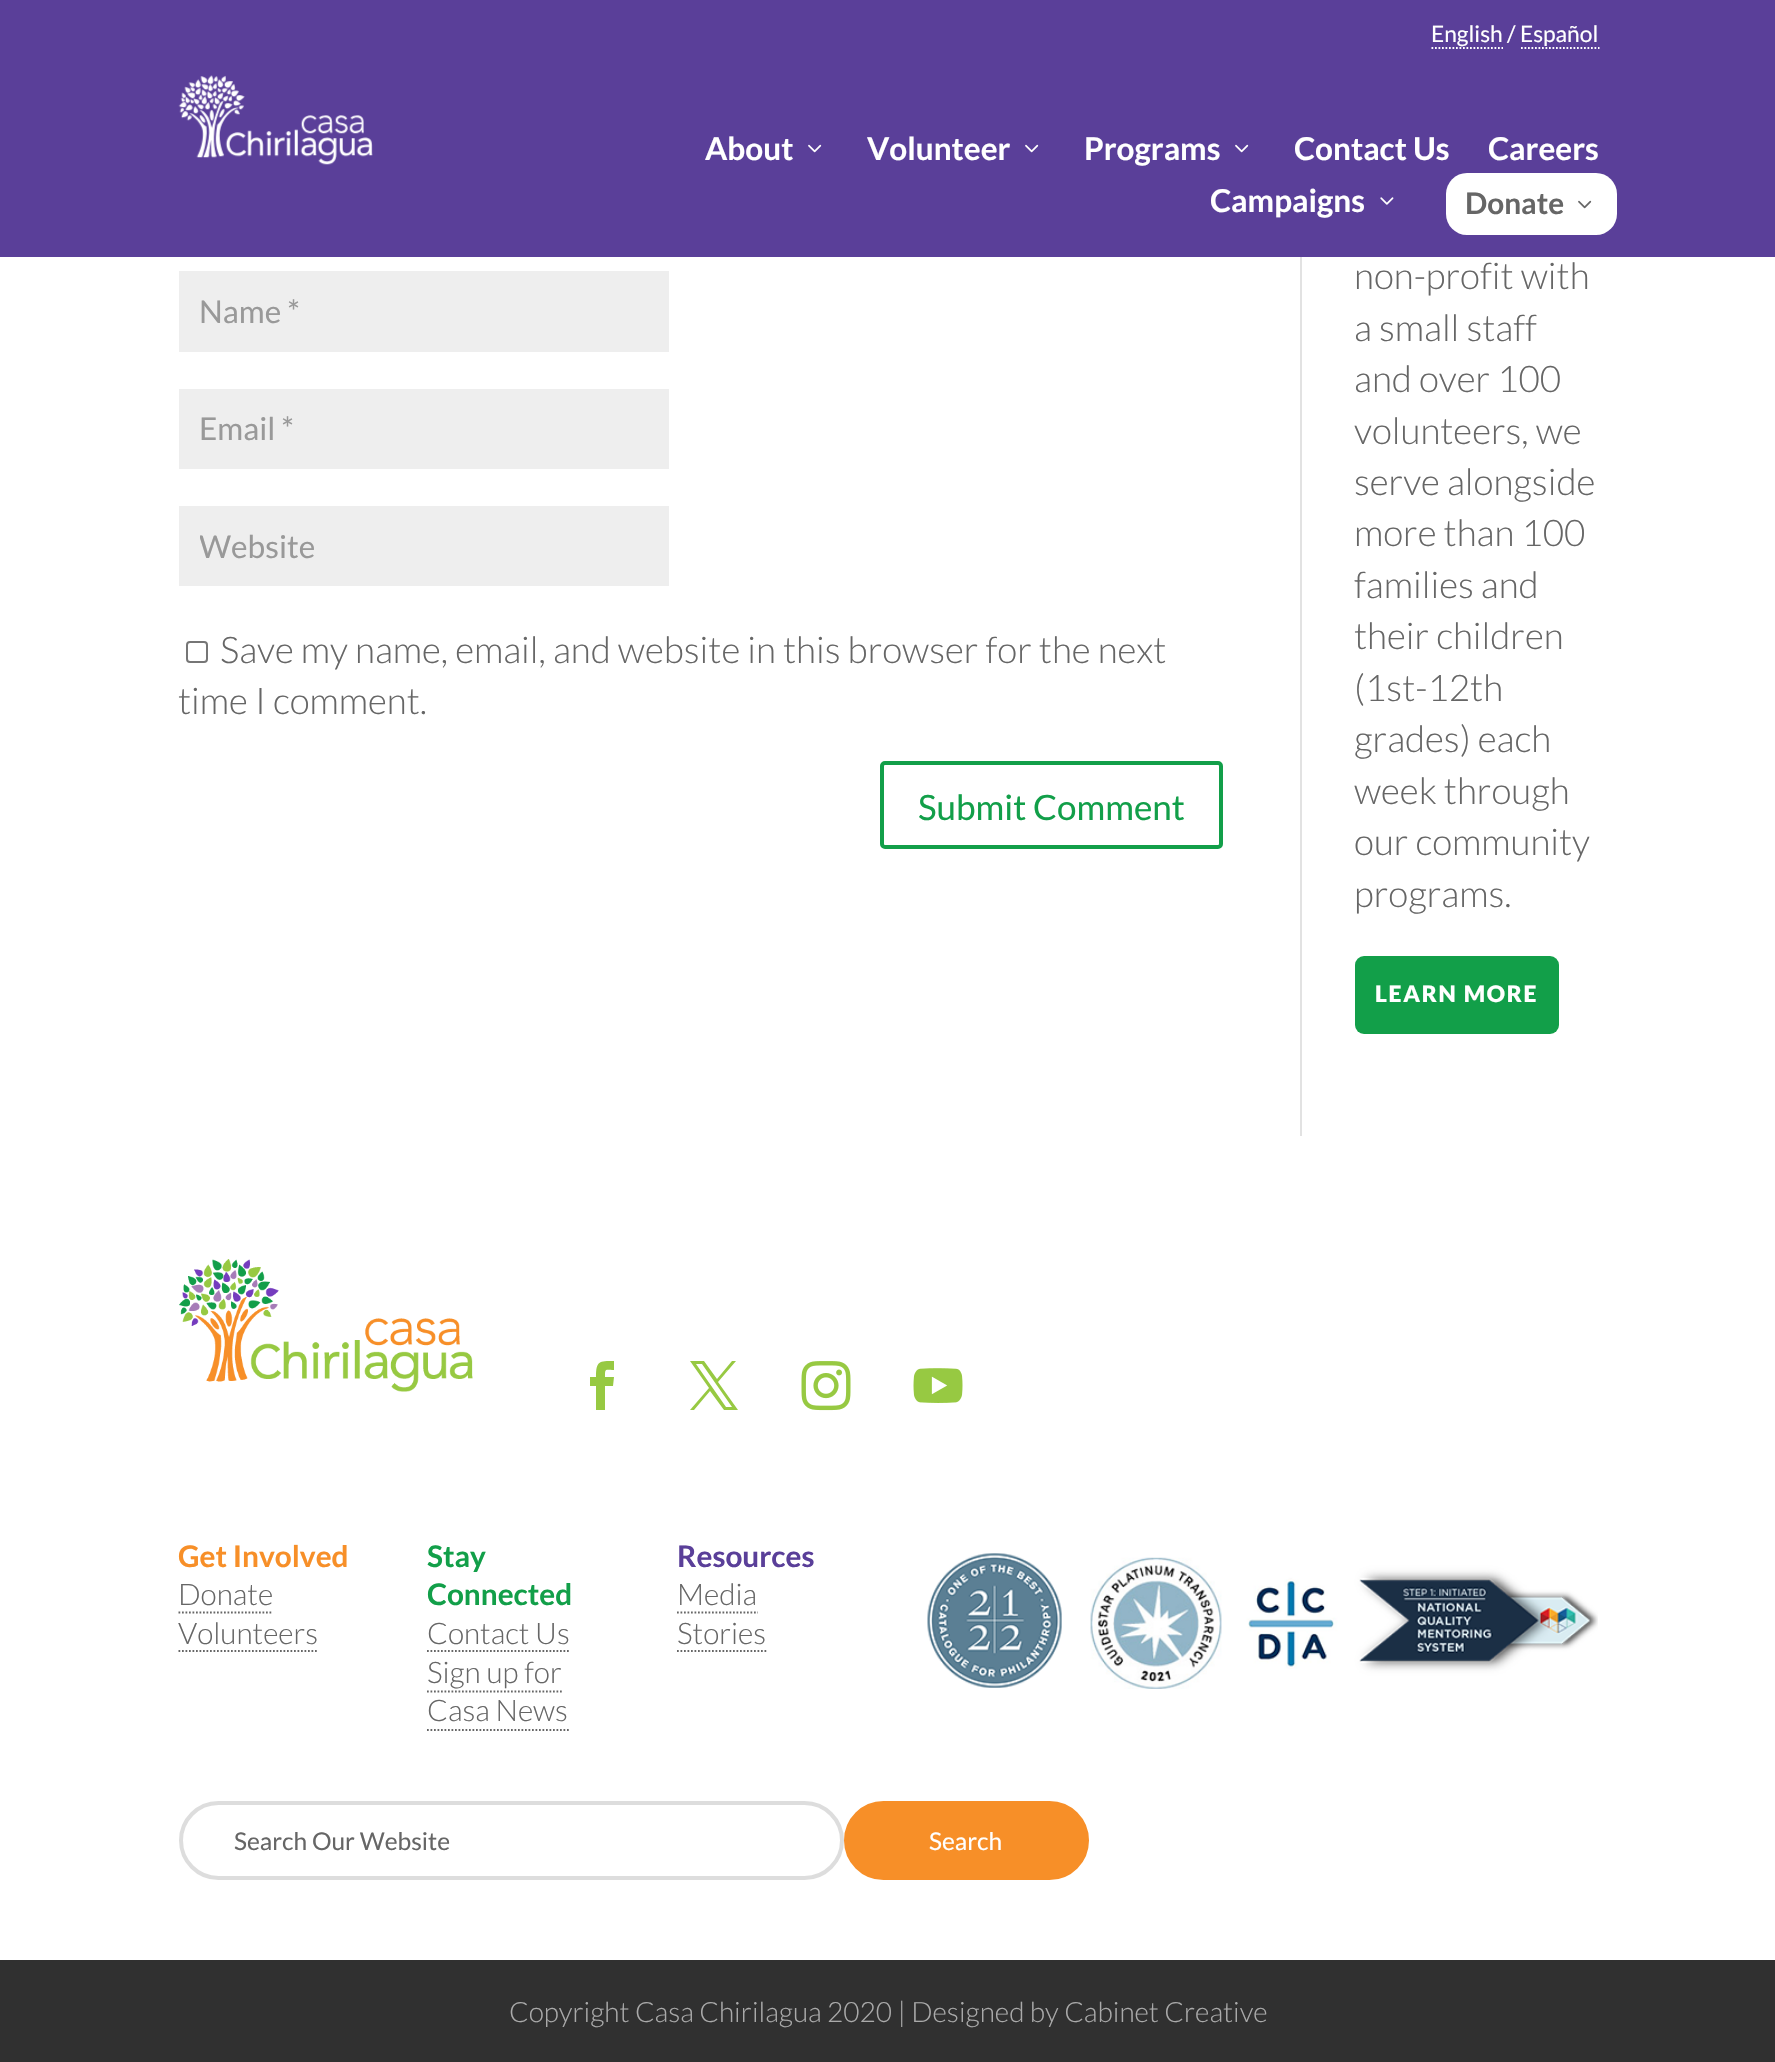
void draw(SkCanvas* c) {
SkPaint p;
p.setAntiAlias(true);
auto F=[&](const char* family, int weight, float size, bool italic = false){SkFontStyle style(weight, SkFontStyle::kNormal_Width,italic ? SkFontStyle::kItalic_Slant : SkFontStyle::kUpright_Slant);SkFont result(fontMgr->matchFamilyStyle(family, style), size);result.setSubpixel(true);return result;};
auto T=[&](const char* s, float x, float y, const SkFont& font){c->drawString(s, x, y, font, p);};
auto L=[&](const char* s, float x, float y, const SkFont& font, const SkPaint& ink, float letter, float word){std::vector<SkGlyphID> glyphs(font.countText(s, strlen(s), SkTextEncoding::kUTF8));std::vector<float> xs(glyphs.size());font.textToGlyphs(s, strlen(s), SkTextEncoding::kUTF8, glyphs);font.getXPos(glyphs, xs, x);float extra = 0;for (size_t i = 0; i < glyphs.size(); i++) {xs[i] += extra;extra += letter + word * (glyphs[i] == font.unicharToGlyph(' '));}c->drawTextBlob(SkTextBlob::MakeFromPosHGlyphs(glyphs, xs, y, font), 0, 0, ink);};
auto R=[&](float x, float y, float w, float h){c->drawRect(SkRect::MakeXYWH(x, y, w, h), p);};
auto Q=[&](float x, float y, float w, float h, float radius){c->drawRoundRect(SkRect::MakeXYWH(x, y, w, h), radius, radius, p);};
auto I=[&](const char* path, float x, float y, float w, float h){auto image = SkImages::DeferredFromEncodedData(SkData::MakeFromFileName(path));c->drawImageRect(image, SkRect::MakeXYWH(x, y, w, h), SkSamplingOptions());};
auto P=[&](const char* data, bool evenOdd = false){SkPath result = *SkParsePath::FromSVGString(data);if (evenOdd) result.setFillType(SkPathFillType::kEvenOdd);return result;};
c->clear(0xffffffff);
p.setColor(0xff5a3f99);
R(0,0,1775,257);
auto f1 = F("Lato",400,22.75);
p.setColor(0xffffffff);
T("English / Español",1431,42,f1);
p.setStroke(true);
p.setStrokeWidth(1.8);
p.setPathEffect(SkDashPathEffect::Make({{1.75f,1.75f}}, 0));
c->drawPath(P("M1431.5 48h71.5"),p);
p.setPathEffect(nullptr);
p.setPathEffect(SkDashPathEffect::Make({{1.75f,1.75f}}, 0));
c->drawPath(P("M1521 48h78.5"),p);
p.setPathEffect(nullptr);
I("1.png",178,75,195,90);
auto f2 = F("Lato",700,31.5);
p.setStroke(false);
T("About",705,160,f2);
I("2.png",808,144,14,9);
T("Volunteer",867,160,f2);
I("2.png",1025,144,14,9);
T("Programs",1084,160,f2);
I("2.png",1235,144,14,9);
T("Contact Us",1294,160,f2);
T("Careers",1488,160,f2);
T("Campaigns",1210,212,f2);
I("3.png",1380,197,14,8);
Q(1446,173,171,62,21);
auto f3 = F("Lato",700,29.75);
p.setColor(0xff666666);
T("Donate",1465,214,f3);
I("4.png",1578,200,14,9);
p.setColor(0xffe2e2e2);
R(1300,257,2,879);
p.setColor(0xffeeeeee);
R(179,271,490,81);
auto f4 = F("Lato",400,31.5);
p.setColor(0xff999999);
T("Name *",199,323,f4);
p.setColor(0xffeeeeee);
R(179,389,490,80);
p.setColor(0xff999999);
T("Email *",199,440,f4);
p.setColor(0xffeeeeee);
R(179,506,490,80);
c->save();
c->clipRect(SkRect::MakeXYWH(200,527,448,38));
p.setColor(0xff999999);
T("Website",199,558,f4);
c->restore();
p.setStroke(true);
p.setStrokeWidth(2);
p.setColor(0xff767676);
c->drawRoundRect(SkRect::MakeXYWH(187,642,20,20),3,3,p);
auto f5 = F("Lato",300,36.75);
p.setStroke(false);
p.setColor(0xff666666);
T("Save my name, email, and website in this browser for the next",220,663,f5);
T("time I comment.",178,714,f5);
p.setStroke(true);
p.setStrokeWidth(4);
p.setColor(0xff129f49);
c->drawRoundRect(SkRect::MakeXYWH(882,763,339,84),3,3,p);
auto f6 = F("Lato",400,35);
p.setStroke(false);
T("Submit Comment",918,820,f6);
p.setColor(0xff666666);
T("non-profit with",1354,289,f5);
T("a small staff",1354,341,f5);
T("and over 100",1354,392,f5);
T("volunteers, we",1354,444,f5);
T("serve alongside",1354,495,f5);
T("more than 100",1354,546,f5);
T("families and",1354,598,f5);
T("their children",1354,649,f5);
T("(1st-12th",1354,701,f5);
T("grades) each",1354,752,f5);
T("week through",1354,804,f5);
T("our community",1354,855,f5);
T("programs.",1354,907,f5);
p.setColor(0xff129f49);
Q(1355,956,204,78,9);
auto f7 = F("Lato",900,22.75);
p.setColor(0xffffffff);
L("LEARN MORE",1375,1002,f7,p,1.75,0);
I("5.png",179,1259,294,133);
p.setColor(0xff97c942);
c->drawPath(P("M596 1410h9v-24h8l1-9h-9c0-9 0-7 9-7v-9c-15 0-18 0-18 16h-6v9h6z"),p);
c->drawPath(P("M690 1361l19 27l-19 22h4l16-19l14 19h14l-20-28l18-21h-4l-15 18l-13-18zm6 3h6l30 43h-6z"),p);
I("6.png",801,1361,50,50);
I("7.png",913,1368,50,35);
p.setColor(0xfff78f28);
T("Get Involved",178,1567,f3);
auto f8 = F("Lato",300,29.75);
p.setColor(0xff666666);
T("Donate",178,1605,f8);
p.setStroke(true);
p.setStrokeWidth(1.8);
p.setPathEffect(SkDashPathEffect::Make({{1.75f,1.75f}}, 0));
c->drawPath(P("M178.5 1612.5h94.5"),p);
p.setPathEffect(nullptr);
p.setStroke(false);
T("Volunteers",178,1644,f8);
p.setStroke(true);
p.setPathEffect(SkDashPathEffect::Make({{1.75f,1.75f}}, 0));
c->drawPath(P("M178.5 1651h140"),p);
p.setPathEffect(nullptr);
p.setStroke(false);
p.setColor(0xff129f49);
T("Stay",427,1567,f3);
T("Connected",427,1605,f3);
p.setColor(0xff666666);
T("Contact Us",427,1644,f8);
p.setStroke(true);
p.setPathEffect(SkDashPathEffect::Make({{1.75f,1.75f}}, 0));
c->drawPath(P("M427 1651h143.5"),p);
p.setPathEffect(nullptr);
p.setStroke(false);
T("Sign up for",427,1683,f8);
p.setStroke(true);
p.setPathEffect(SkDashPathEffect::Make({{1.75f,1.75f}}, 0));
c->drawPath(P("M427 1691.5h135"),p);
p.setPathEffect(nullptr);
p.setStroke(false);
T("Casa News",427,1721,f8);
p.setStroke(true);
p.setPathEffect(SkDashPathEffect::Make({{1.75f,1.75f}}, 0));
c->drawPath(P("M427 1730h142"),p);
p.setPathEffect(nullptr);
p.setStroke(false);
p.setColor(0xff5a3f99);
T("Resources",677,1567,f3);
p.setColor(0xff666666);
T("Media",677,1605,f8);
p.setStroke(true);
p.setPathEffect(SkDashPathEffect::Make({{1.75f,1.75f}}, 0));
c->drawPath(P("M677 1612.5h81"),p);
p.setPathEffect(nullptr);
p.setStroke(false);
T("Stories",677,1644,f8);
p.setStroke(true);
p.setPathEffect(SkDashPathEffect::Make({{1.75f,1.75f}}, 0));
c->drawPath(P("M677 1651h89.5"),p);
p.setPathEffect(nullptr);
I("8.png",927,1553,671,136);
p.setStrokeWidth(4);
p.setColor(0xffdddddd);
c->drawRoundRect(SkRect::MakeXYWH(181,1803,661,75),37.5,37.5,p);
auto f9 = F("Lato",400,24.5);
p.setStroke(false);
p.setColor(0xff666666);
T("Search Our Website",234,1850,f9);
p.setColor(0xfff78f28);
c->drawRoundRect(SkRect::MakeXYWH(846,1803,241,75),37.5,37.5,p);
p.setStroke(true);
c->drawRoundRect(SkRect::MakeXYWH(846,1803,241,75),37.5,37.5,p);
p.setStroke(false);
p.setColor(0xffffffff);
T("Search",929,1850,f9);
p.setColor(0xff303030);
R(0,1960,1775,102);
auto f10 = F("Lato",300,28);
p.setColor(0xffaaaaaa);
T("Copyright Casa Chirilagua 2020 | Designed by Cabinet Creative",509,2022,f10);
}
